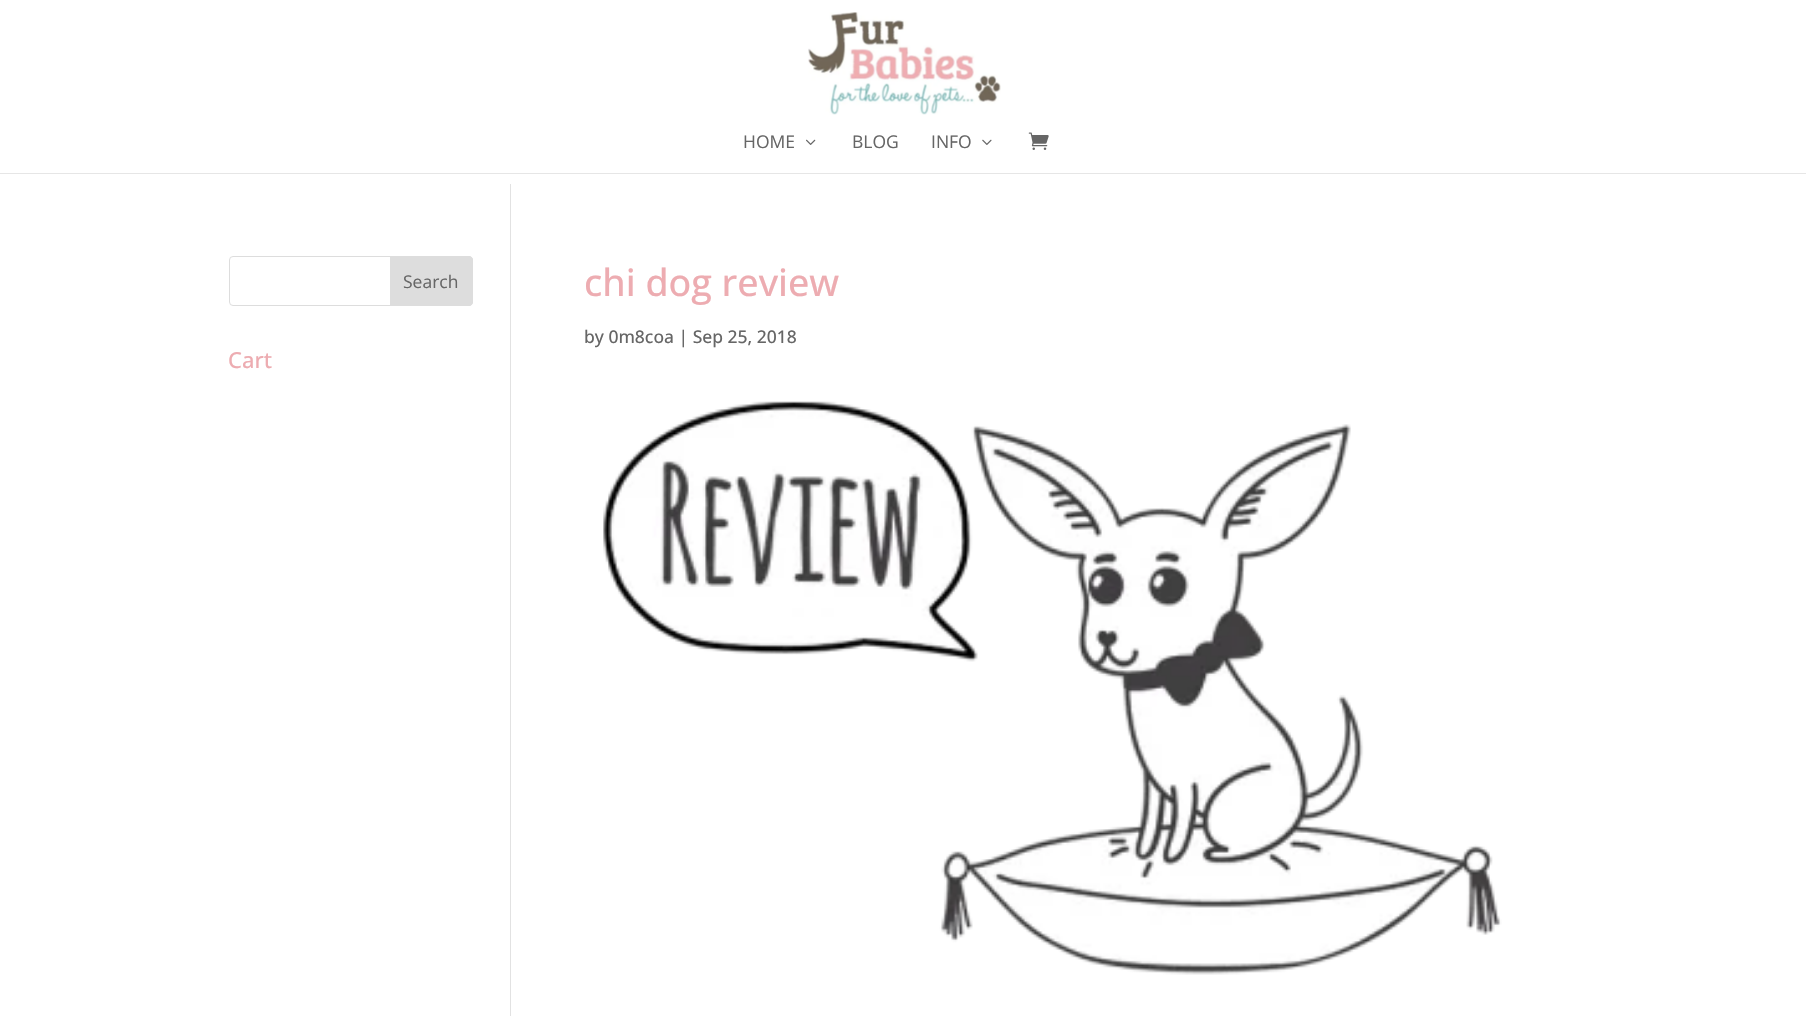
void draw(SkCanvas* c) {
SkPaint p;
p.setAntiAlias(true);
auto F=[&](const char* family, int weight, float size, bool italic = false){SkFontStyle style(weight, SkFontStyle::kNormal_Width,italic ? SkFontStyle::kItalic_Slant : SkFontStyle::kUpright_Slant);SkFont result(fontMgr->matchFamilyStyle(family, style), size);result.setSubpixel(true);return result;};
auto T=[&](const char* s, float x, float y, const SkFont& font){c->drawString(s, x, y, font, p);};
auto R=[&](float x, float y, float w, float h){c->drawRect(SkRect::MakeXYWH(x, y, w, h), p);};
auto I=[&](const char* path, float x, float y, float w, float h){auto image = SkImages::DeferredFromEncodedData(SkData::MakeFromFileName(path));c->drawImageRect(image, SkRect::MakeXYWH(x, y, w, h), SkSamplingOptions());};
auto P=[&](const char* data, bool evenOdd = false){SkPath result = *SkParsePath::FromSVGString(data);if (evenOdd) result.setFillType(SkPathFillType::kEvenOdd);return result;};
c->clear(0xffffffff);
p.setColor(0xffe6e6e6);
R(0,173,1806,1);
I("1.png",808,12,193,103);
auto f1 = F("Open Sans",400,17.5);
p.setColor(0xff666666);
T("HOME",743,148,f1);
I("2.png",806,139,10,6);
T("BLOG",852,148,f1);
T("INFO",931,148,f1);
I("3.png",982,139,10,6);
I("4.png",1028,132,21,18);
p.setColor(0xffe2e2e2);
R(510,184,1,832);
p.setStroke(true);
p.setStrokeWidth(1);
p.setColor(0xffdddddd);
c->drawRoundRect(SkRect::MakeXYWH(229.5,256.5,243,49),3.5,3.5,p);
p.setStroke(false);
c->drawPath(P("M390.5 256.5h78.5c2 0 3.5 1.5 3.5 3.5v42c0 2-1.5 3.5-3.5 3.5h-78.5z"),p);
p.setStroke(true);
c->drawPath(P("M390.5 256.5h78.5c2 0 3.5 1.5 3.5 3.5v42c0 2-1.5 3.5-3.5 3.5h-78.5z"),p);
p.setStroke(false);
p.setColor(0xff666666);
T("Search",403,288,f1);
auto f2 = F("Open Sans",500,22);
p.setColor(0xffedacb1);
T("Cart",228,368,f2);
auto f3 = F("Open Sans",500,37.5);
T("chi dog review",584,296,f3);
auto f4 = F("Open Sans",500,17.5);
p.setColor(0xff666666);
T("by 0m8coa | Sep 25, 2018",584,343,f4);
I("5.png",603,401,899,574);
}
